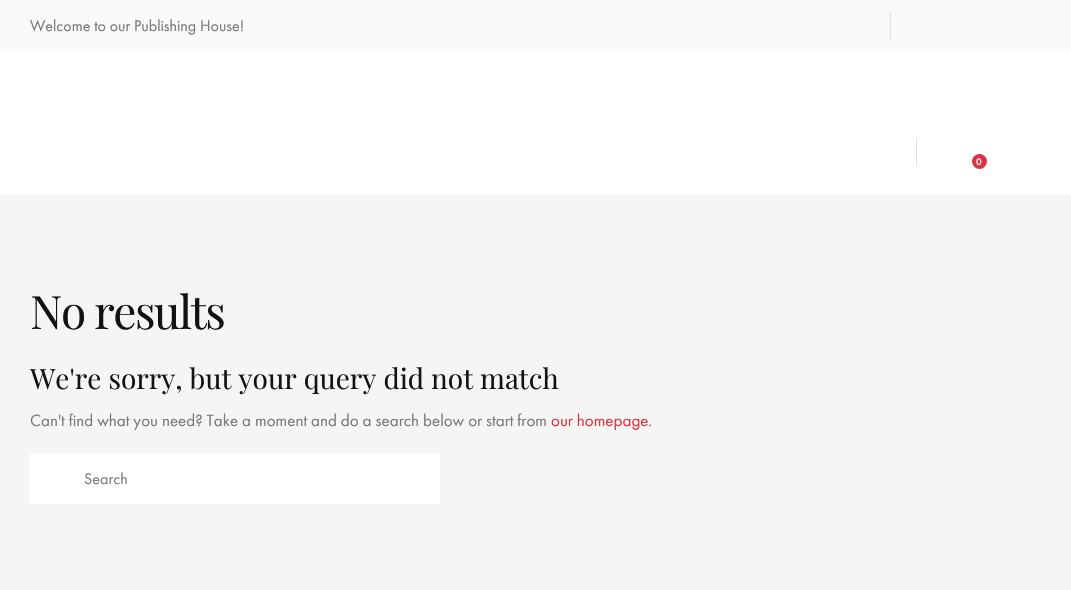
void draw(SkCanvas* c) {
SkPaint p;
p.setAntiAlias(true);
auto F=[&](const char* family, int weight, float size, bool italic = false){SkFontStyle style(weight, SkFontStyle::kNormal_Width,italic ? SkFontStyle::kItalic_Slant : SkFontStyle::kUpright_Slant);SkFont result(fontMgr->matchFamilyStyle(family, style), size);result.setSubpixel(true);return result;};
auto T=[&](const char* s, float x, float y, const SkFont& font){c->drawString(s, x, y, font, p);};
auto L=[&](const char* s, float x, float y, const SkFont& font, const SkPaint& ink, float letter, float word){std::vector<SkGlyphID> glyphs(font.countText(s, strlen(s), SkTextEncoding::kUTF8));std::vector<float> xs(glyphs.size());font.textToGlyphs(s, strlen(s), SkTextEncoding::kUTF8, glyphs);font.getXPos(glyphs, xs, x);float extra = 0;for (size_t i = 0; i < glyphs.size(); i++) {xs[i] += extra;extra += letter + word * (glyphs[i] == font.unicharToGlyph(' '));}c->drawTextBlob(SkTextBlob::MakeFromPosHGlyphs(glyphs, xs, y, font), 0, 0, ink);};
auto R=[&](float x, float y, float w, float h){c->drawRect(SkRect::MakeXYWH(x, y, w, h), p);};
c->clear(0xfff5f5f4);
p.setColor(0xfff9f9f9);
R(0,0,1071,51);
auto f1 = F("Futura PT",400,16);
p.setColor(0xff797979);
T("Welcome to our Publishing House!",30,31,f1);
p.setColor(0xffdedede);
R(890,12,1,27);
p.setColor(0xffffffff);
R(0,51,1071,144);
p.setColor(0xffdedede);
R(916,138,1,28);
p.setColor(0xffde3241);
c->drawCircle(979.5,161.5,7.5,p);
auto f2 = F("Futura PT",500,10);
p.setColor(0xffffffff);
T("0",976,165,f2);
auto f3 = F("Playfair Display",400,46);
p.setColor(0xff121212);
L("No results",30,329,f3,p,-1.6,0);
auto f4 = F("Playfair Display",400,28);
T("We're sorry, but your query did not match",30,389,f4);
auto f5 = F("Futura PT",400,17);
p.setColor(0xff797979);
T("Can't find what you need? Take a moment and do a search below or start from",30,426,f5);
p.setColor(0xffde3241);
T("our homepage",551,426,f5);
p.setColor(0xff797979);
T(".",648,426,f5);
p.setColor(0xffffffff);
R(30,453,410,51);
p.setColor(0xff797979);
T("Search",84,484,f1);
}
